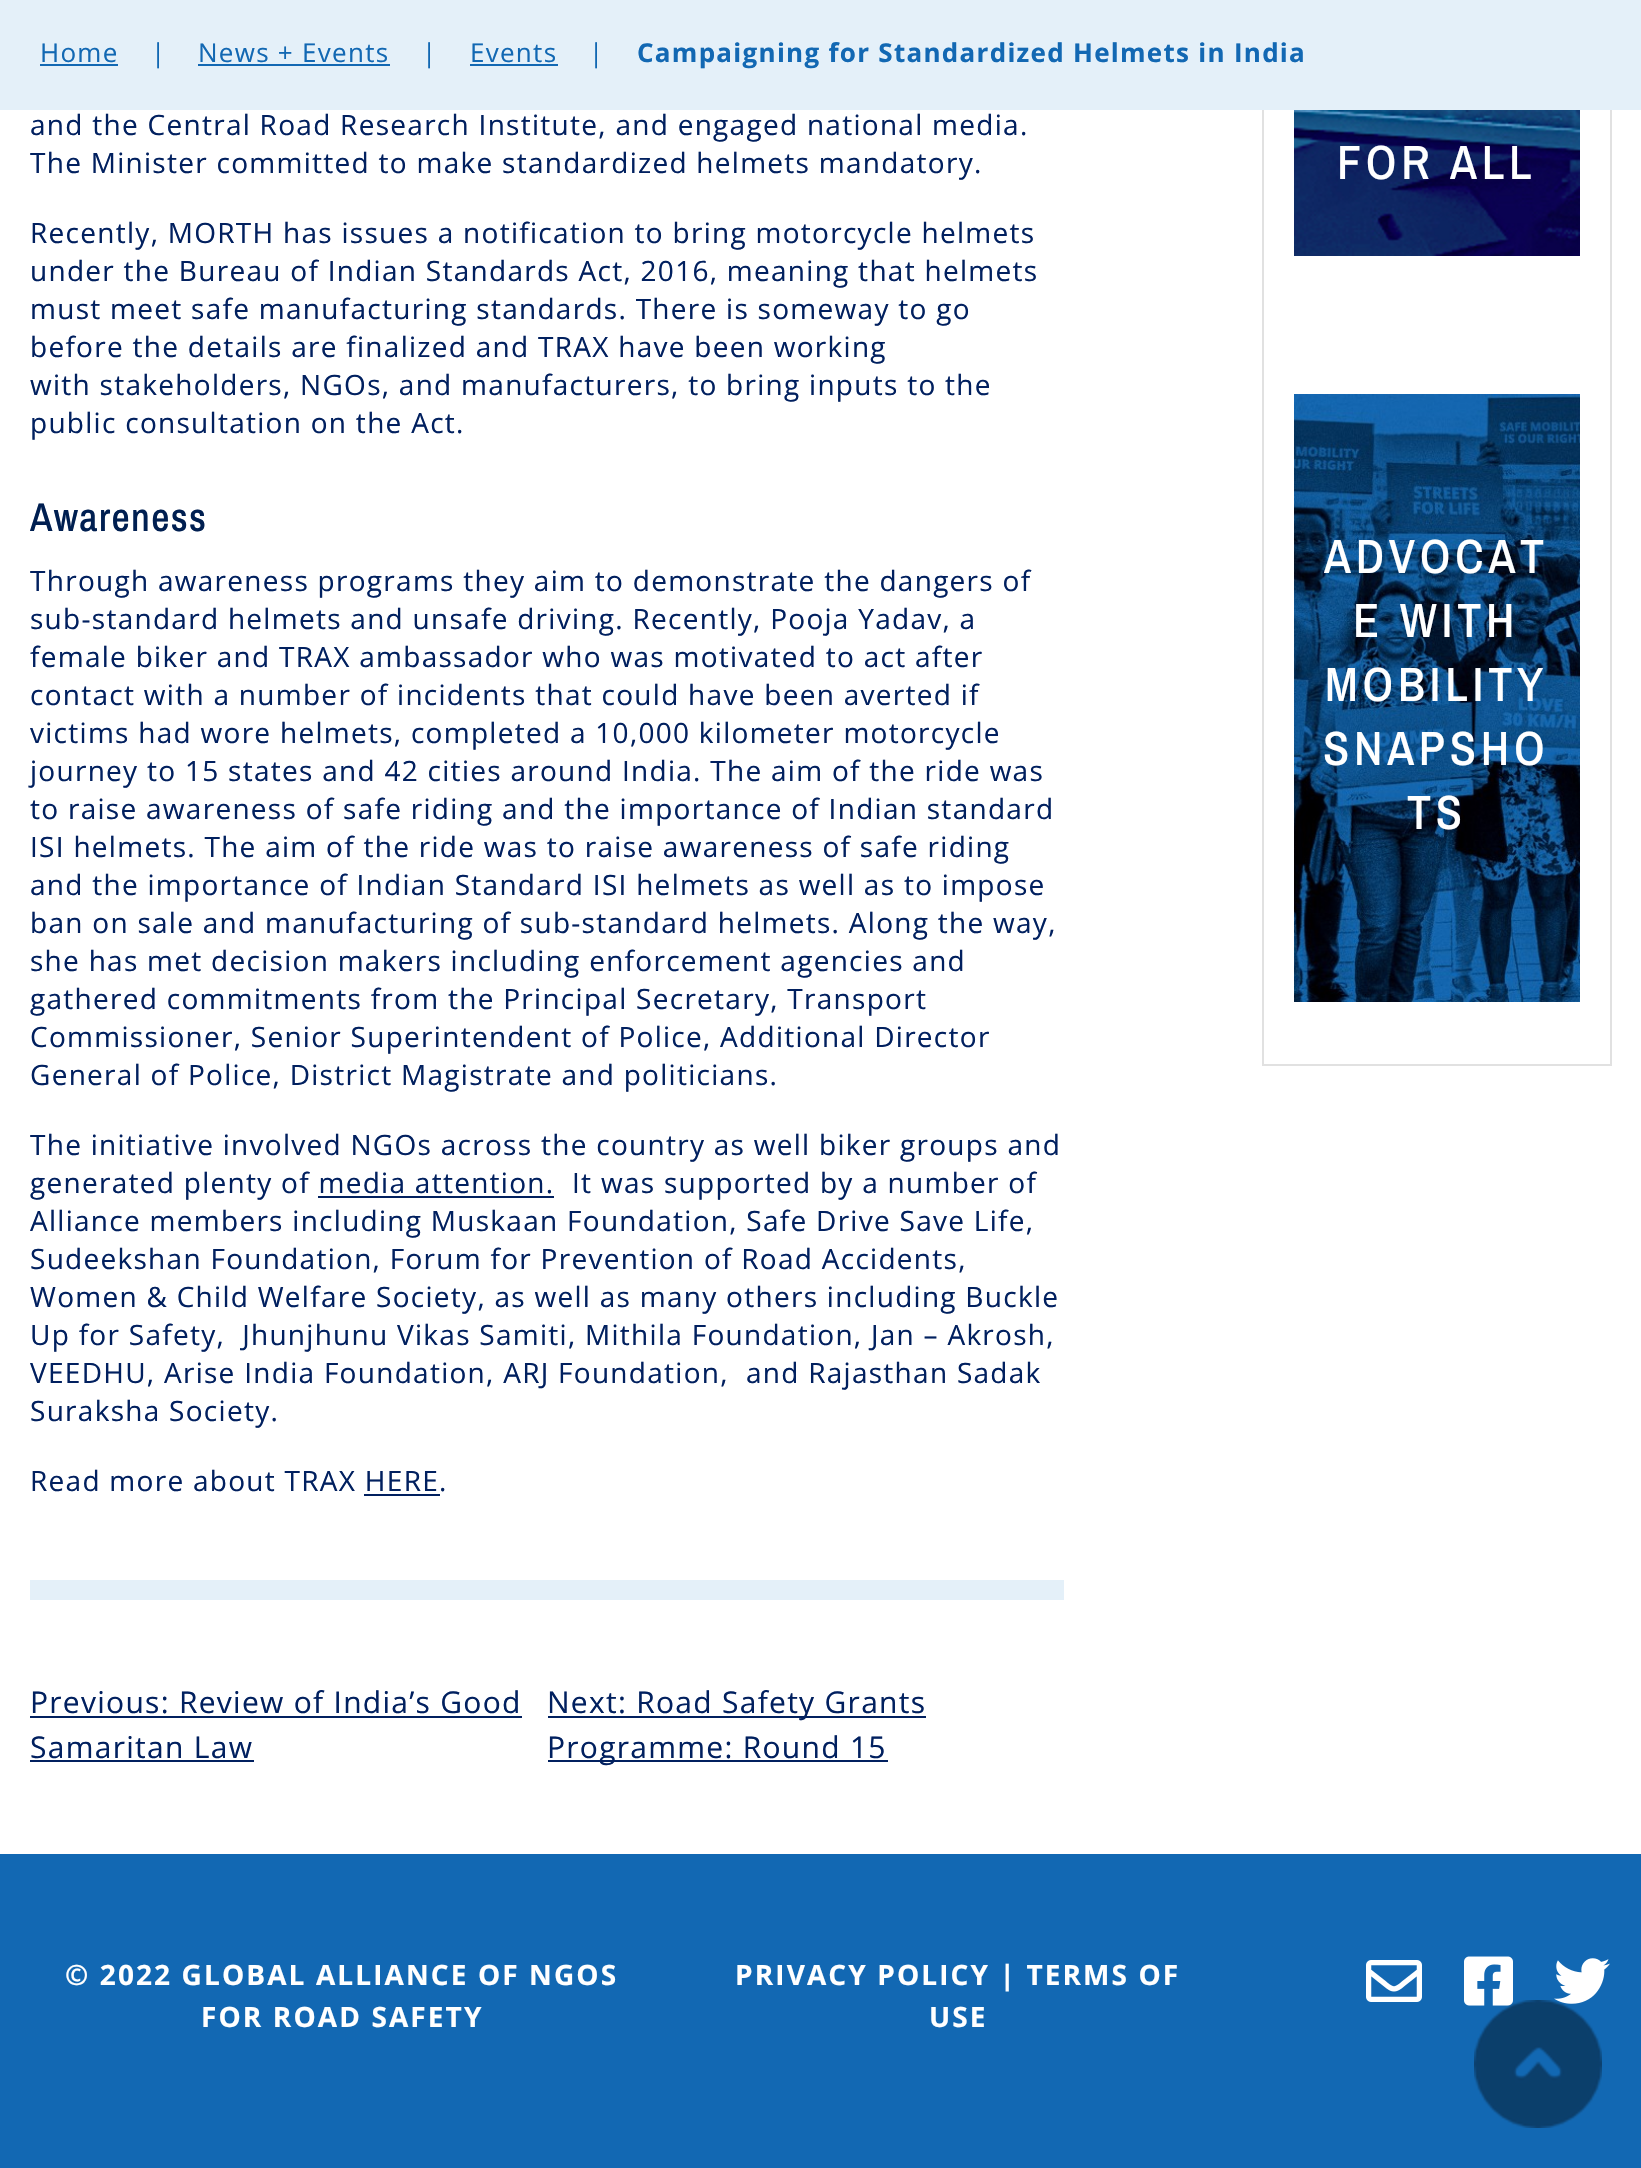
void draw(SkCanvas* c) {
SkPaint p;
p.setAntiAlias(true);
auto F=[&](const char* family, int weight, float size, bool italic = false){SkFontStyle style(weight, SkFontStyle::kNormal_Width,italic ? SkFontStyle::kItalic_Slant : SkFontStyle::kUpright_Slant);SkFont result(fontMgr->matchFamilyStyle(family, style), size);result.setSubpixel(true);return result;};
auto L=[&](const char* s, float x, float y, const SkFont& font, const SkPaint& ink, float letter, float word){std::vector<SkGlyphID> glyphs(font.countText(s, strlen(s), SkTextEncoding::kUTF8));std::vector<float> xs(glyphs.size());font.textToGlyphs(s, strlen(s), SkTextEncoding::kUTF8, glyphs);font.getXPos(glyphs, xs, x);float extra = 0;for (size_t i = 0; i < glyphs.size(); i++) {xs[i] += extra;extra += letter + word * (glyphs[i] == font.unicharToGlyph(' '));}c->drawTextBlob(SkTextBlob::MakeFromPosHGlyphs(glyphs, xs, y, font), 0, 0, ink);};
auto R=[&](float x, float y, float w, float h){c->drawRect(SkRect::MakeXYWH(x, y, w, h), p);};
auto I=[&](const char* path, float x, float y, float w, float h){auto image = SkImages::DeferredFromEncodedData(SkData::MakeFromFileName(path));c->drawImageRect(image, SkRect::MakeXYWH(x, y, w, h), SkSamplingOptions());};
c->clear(0xffffffff);
p.setStroke(true);
p.setStrokeWidth(2);
p.setColor(0xffe1e1e1);
c->drawRect(SkRect::MakeXYWH(1263,-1,348,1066),p);
p.setStroke(false);
p.setColor(0xffe4f0f9);
R(0,0,1641,110);
auto f1 = F("Open Sans",400,26);
p.setColor(0xff1268b3);
L("Home",40,62,f1,p,1.28,0);
R(40,64,78,2);
L("|",151,62,f1,p,1.28,0);
L("News + Events",198,62,f1,p,1.28,0);
R(198,64,192,2);
L("|",422,62,f1,p,1.28,0);
L("Events",470,62,f1,p,1.28,0);
R(470,64,88,2);
L("|",589,62,f1,p,1.28,0);
auto f2 = F("Open Sans",700,26);
L("Campaigning for Standardized Helmets in India",637,62,f2,p,1.28,0);
auto f3 = F("Open Sans",400,28);
p.setColor(0xff01205f);
L("and the Central Road Research Institute, and engaged national media.",30,135,f3,p,1.28,0);
L("The Minister committed to make standardized helmets mandatory.",30,173,f3,p,1.28,0);
L("Recently, MORTH has issues a notification to bring motorcycle helmets",30,243,f3,p,1.28,0);
L("under the Bureau of Indian Standards Act, 2016, meaning that helmets",30,281,f3,p,1.28,0);
L("must meet safe manufacturing standards. There is someway to go",30,319,f3,p,1.28,0);
L("before the details are finalized and TRAX have been working",30,357,f3,p,1.28,0);
L("with stakeholders, NGOs, and manufacturers, to bring inputs to the",30,395,f3,p,1.28,0);
L("public consultation on the Act.",30,433,f3,p,1.28,0);
auto f4 = F("Archivo Narrow",500,40);
p.setColor(0xff001f51);
L("Awareness",30,531,f4,p,1.28,0);
p.setColor(0xff01205f);
L("Through awareness programs they aim to demonstrate the dangers of",30,591,f3,p,1.28,0);
L("sub-standard helmets and unsafe driving. Recently, Pooja Yadav, a",30,629,f3,p,1.28,0);
L("female biker and TRAX ambassador who was motivated to act after",30,667,f3,p,1.28,0);
L("contact with a number of incidents that could have been averted if",30,705,f3,p,1.28,0);
L("victims had wore helmets, completed a 10,000 kilometer motorcycle",30,743,f3,p,1.28,0);
L("journey to 15 states and 42 cities around India. The aim of the ride was",30,781,f3,p,1.28,0);
L("to raise awareness of safe riding and the importance of Indian standard",30,819,f3,p,1.28,0);
L("ISI helmets. The aim of the ride was to raise awareness of safe riding",30,857,f3,p,1.28,0);
L("and the importance of Indian Standard ISI helmets as well as to impose",30,895,f3,p,1.28,0);
L("ban on sale and manufacturing of sub-standard helmets. Along the way,",30,933,f3,p,1.28,0);
L("she has met decision makers including enforcement agencies and",30,971,f3,p,1.28,0);
L("gathered commitments from the Principal Secretary, Transport",30,1009,f3,p,1.28,0);
L("Commissioner, Senior Superintendent of Police, Additional Director",30,1047,f3,p,1.28,0);
L("General of Police, District Magistrate and politicians.",30,1085,f3,p,1.28,0);
L("The initiative involved NGOs across the country as well biker groups and",30,1155,f3,p,1.28,0);
L("generated plenty of media attention.",30,1193,f3,p,1.28,0);
L("It was supported by a number of",572,1193,f3,p,1.28,0);
R(318,1196,236,2);
L("Alliance members including Muskaan Foundation, Safe Drive Save Life,",30,1231,f3,p,1.28,0);
L("Sudeekshan Foundation, Forum for Prevention of Road Accidents,",30,1269,f3,p,1.28,0);
L("Women & Child Welfare Society, as well as many others including Buckle",30,1307,f3,p,1.28,0);
L("Up for Safety,  Jhunjhunu Vikas Samiti, Mithila Foundation, Jan – Akrosh,",30,1345,f3,p,1.28,0);
L("VEEDHU, Arise India Foundation, ARJ Foundation,  and Rajasthan Sadak",30,1383,f3,p,1.28,0);
L("Suraksha Society.",30,1421,f3,p,1.28,0);
L("Read more about TRAX HERE.",30,1491,f3,p,1.28,0);
R(364,1494,76,2);
p.setColor(0xffe4f0f9);
R(30,1580,1034,20);
auto f5 = F("Open Sans",400,30);
p.setColor(0xff01205f);
L("Previous: Review of India’s Good",30,1713,f5,p,1.28,0);
R(30,1716,492,2);
L("Samaritan Law",30,1758,f5,p,1.28,0);
R(30,1760,224,2);
R(548,1716,378,2);
L("Next: Road Safety Grants",547,1713,f5,p,1.28,0);
R(548,1760,340,2);
L("Programme: Round 15",547,1758,f5,p,1.28,0);
I("1.png",1294,110,286,146);
auto f6 = F("Archivo Narrow",500,48);
p.setColor(0xffffffff);
L("FOR ALL",1337,179,f6,p,4.75,0);
I("2.png",1294,394,286,608);
L("ADVOCAT",1324,573,f6,p,4.75,0);
L("E WITH",1353,637,f6,p,4.75,0);
L("MOBILITY",1325,701,f6,p,4.75,0);
L("SNAPSHO",1323,765,f6,p,4.75,0);
L("TS",1407,829,f6,p,4.75,0);
p.setColor(0xff1268b3);
R(0,1854,1641,314);
auto f7 = F("Open Sans",700,28);
p.setColor(0xffffffff);
L("© 2022 GLOBAL ALLIANCE OF NGOS",65,1985,f7,p,2.1,0);
L("FOR ROAD SAFETY",201,2027,f7,p,2.1,0);
L("PRIVACY POLICY | TERMS OF",735,1985,f7,p,2.1,0);
L("USE",929,2027,f7,p,2.1,0);
I("3.png",1366,1960,56,42);
I("4.png",1464,1956,49,50);
I("5.png",1554,1958,56,46);
I("6.png",1474,2000,128,128);
}
